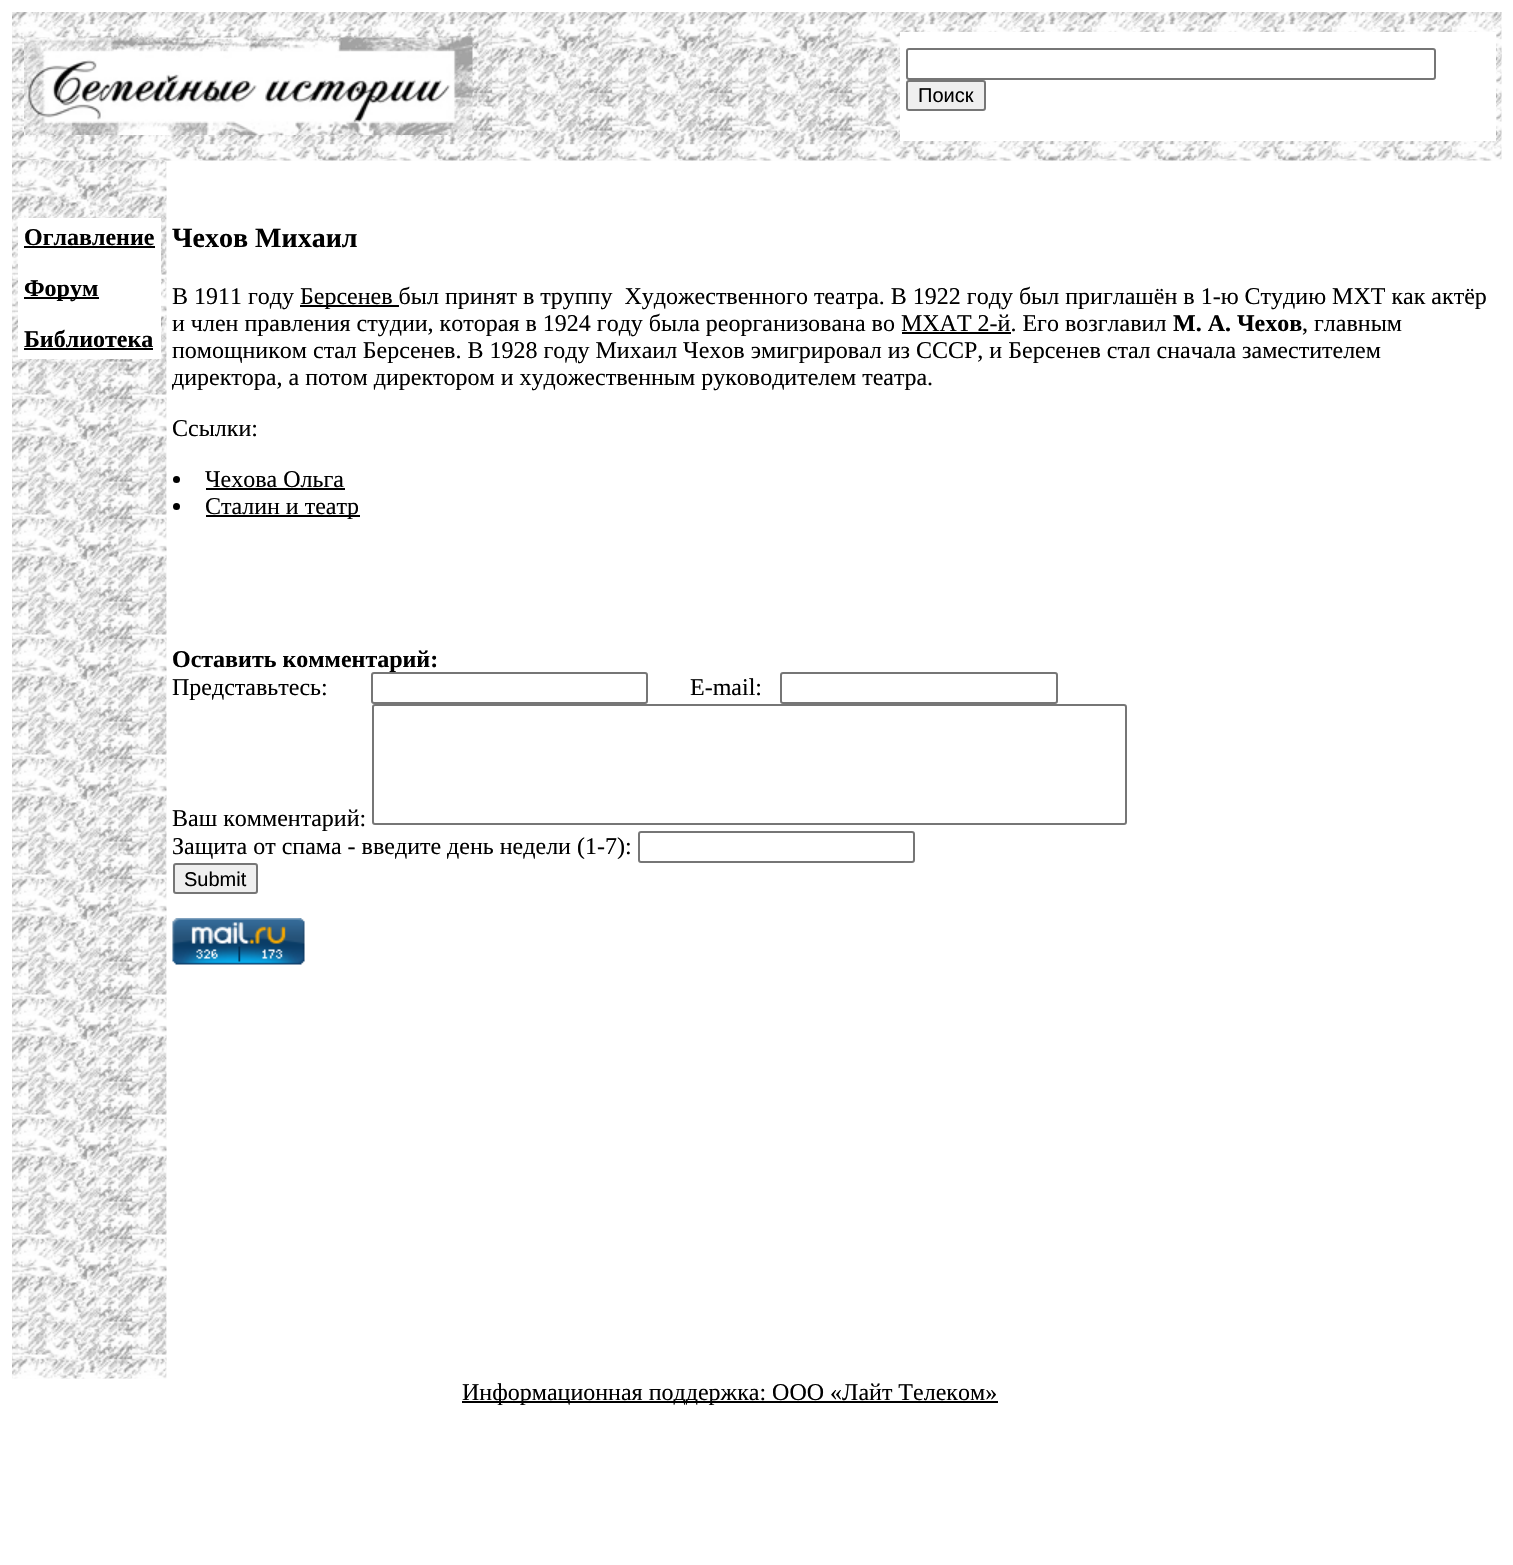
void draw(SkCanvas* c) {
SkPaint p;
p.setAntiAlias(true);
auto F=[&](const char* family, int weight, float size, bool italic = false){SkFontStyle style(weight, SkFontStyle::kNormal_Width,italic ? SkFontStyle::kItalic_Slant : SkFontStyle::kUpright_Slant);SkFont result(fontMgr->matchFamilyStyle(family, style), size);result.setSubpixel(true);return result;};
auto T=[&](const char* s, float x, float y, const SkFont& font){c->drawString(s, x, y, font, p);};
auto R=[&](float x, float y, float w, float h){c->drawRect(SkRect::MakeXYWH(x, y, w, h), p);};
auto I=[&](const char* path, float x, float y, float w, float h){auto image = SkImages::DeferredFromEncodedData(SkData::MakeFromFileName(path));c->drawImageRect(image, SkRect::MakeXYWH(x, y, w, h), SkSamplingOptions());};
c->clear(0xffffffff);
I("1.png",12,12,1490,149);
I("2.png",24,37,449,98);
p.setColor(0xffffffff);
R(900,32,596,109);
p.setStroke(true);
p.setStrokeWidth(2);
p.setColor(0xff767676);
c->drawRoundRect(SkRect::MakeXYWH(907,49,528,30),2,2,p);
p.setStroke(false);
p.setColor(0xffefefef);
c->drawRoundRect(SkRect::MakeXYWH(907,81,78,29),2,2,p);
p.setStroke(true);
p.setColor(0xff767676);
c->drawRoundRect(SkRect::MakeXYWH(907,81,78,29),2,2,p);
auto f1 = F("Liberation Sans",400,20);
p.setStroke(false);
p.setColor(0xff000000);
T("Поиск",918,102,f1);
I("3.png",12,160,155,1219);
p.setColor(0xffffffff);
R(18,218,143,141);
auto f2 = F("Liberation Serif",700,24);
p.setColor(0xff000000);
T("Оглавление",24,245,f2);
R(24,246,131,2);
R(24,297,75,2);
T("Форум",24,296,f2);
T("Библиотека",24,347,f2);
R(24,348,129,2);
auto f3 = F("Liberation Serif",700,28);
T("Чехов Михаил",172,247,f3);
auto f4 = F("Liberation Serif",400,24);
T("В 1911 году",172,304,f4);
R(300,305,99,2);
T("Берсенев был принят в труппу  Художественного театра. В 1922 году был приглашён в 1-ю Студию МХТ как актёр",300,304,f4);
T("и член правления студии, которая в 1924 году была реорганизована во МХАТ 2-й. Его возглавил",172,331,f4);
T("М. А. Чехов",1173,331,f2);
T(", главным",1302,331,f4);
R(902,332,109,2);
T("помощником стал Берсенев. В 1928 году Михаил Чехов эмигрировал из СССР, и Берсенев стал сначала заместителем",172,358,f4);
T("директора, а потом директором и художественным руководителем театра.",172,385,f4);
T("Ссылки:",172,436,f4);
c->drawCircle(176.5,479.5,3.5,p);
T("Чехова Ольга",205,487,f4);
R(206,488,139,2);
c->drawCircle(176.5,506.5,3.5,p);
R(206,515,154,2);
T("Сталин и театр",205,514,f4);
T("Оставить комментарий:",172,667,f2);
T("Представьтесь:",172,695,f4);
p.setColor(0xffffffff);
c->drawRoundRect(SkRect::MakeXYWH(372,673,275,30),2,2,p);
p.setStroke(true);
p.setColor(0xff767676);
c->drawRoundRect(SkRect::MakeXYWH(372,673,275,30),2,2,p);
p.setStroke(false);
p.setColor(0xff000000);
T("E-mail:",690,695,f4);
p.setStroke(true);
p.setColor(0xff767676);
c->drawRoundRect(SkRect::MakeXYWH(781,673,276,30),2,2,p);
p.setStroke(false);
p.setColor(0xff000000);
T("Ваш комментарий:",172,826,f4);
p.setStroke(true);
p.setColor(0xff767676);
c->drawRoundRect(SkRect::MakeXYWH(373,705,753,119),2,2,p);
p.setStroke(false);
p.setColor(0xff000000);
T("Защита от спама - введите день недели (1-7):",172,854,f4);
p.setStroke(true);
p.setColor(0xff767676);
c->drawRoundRect(SkRect::MakeXYWH(639,832,275,30),2,2,p);
p.setStroke(false);
p.setColor(0xffefefef);
c->drawRoundRect(SkRect::MakeXYWH(174,864,83,29),2,2,p);
p.setStroke(true);
p.setColor(0xff767676);
c->drawRoundRect(SkRect::MakeXYWH(174,864,83,29),2,2,p);
p.setStroke(false);
p.setColor(0xff000000);
T("Submit",184,886,f1);
I("4.png",172,918,133,47);
R(462,1401,536,2);
T("Информационная поддержка: ООО «Лайт Телеком»",462,1400,f4);
}
